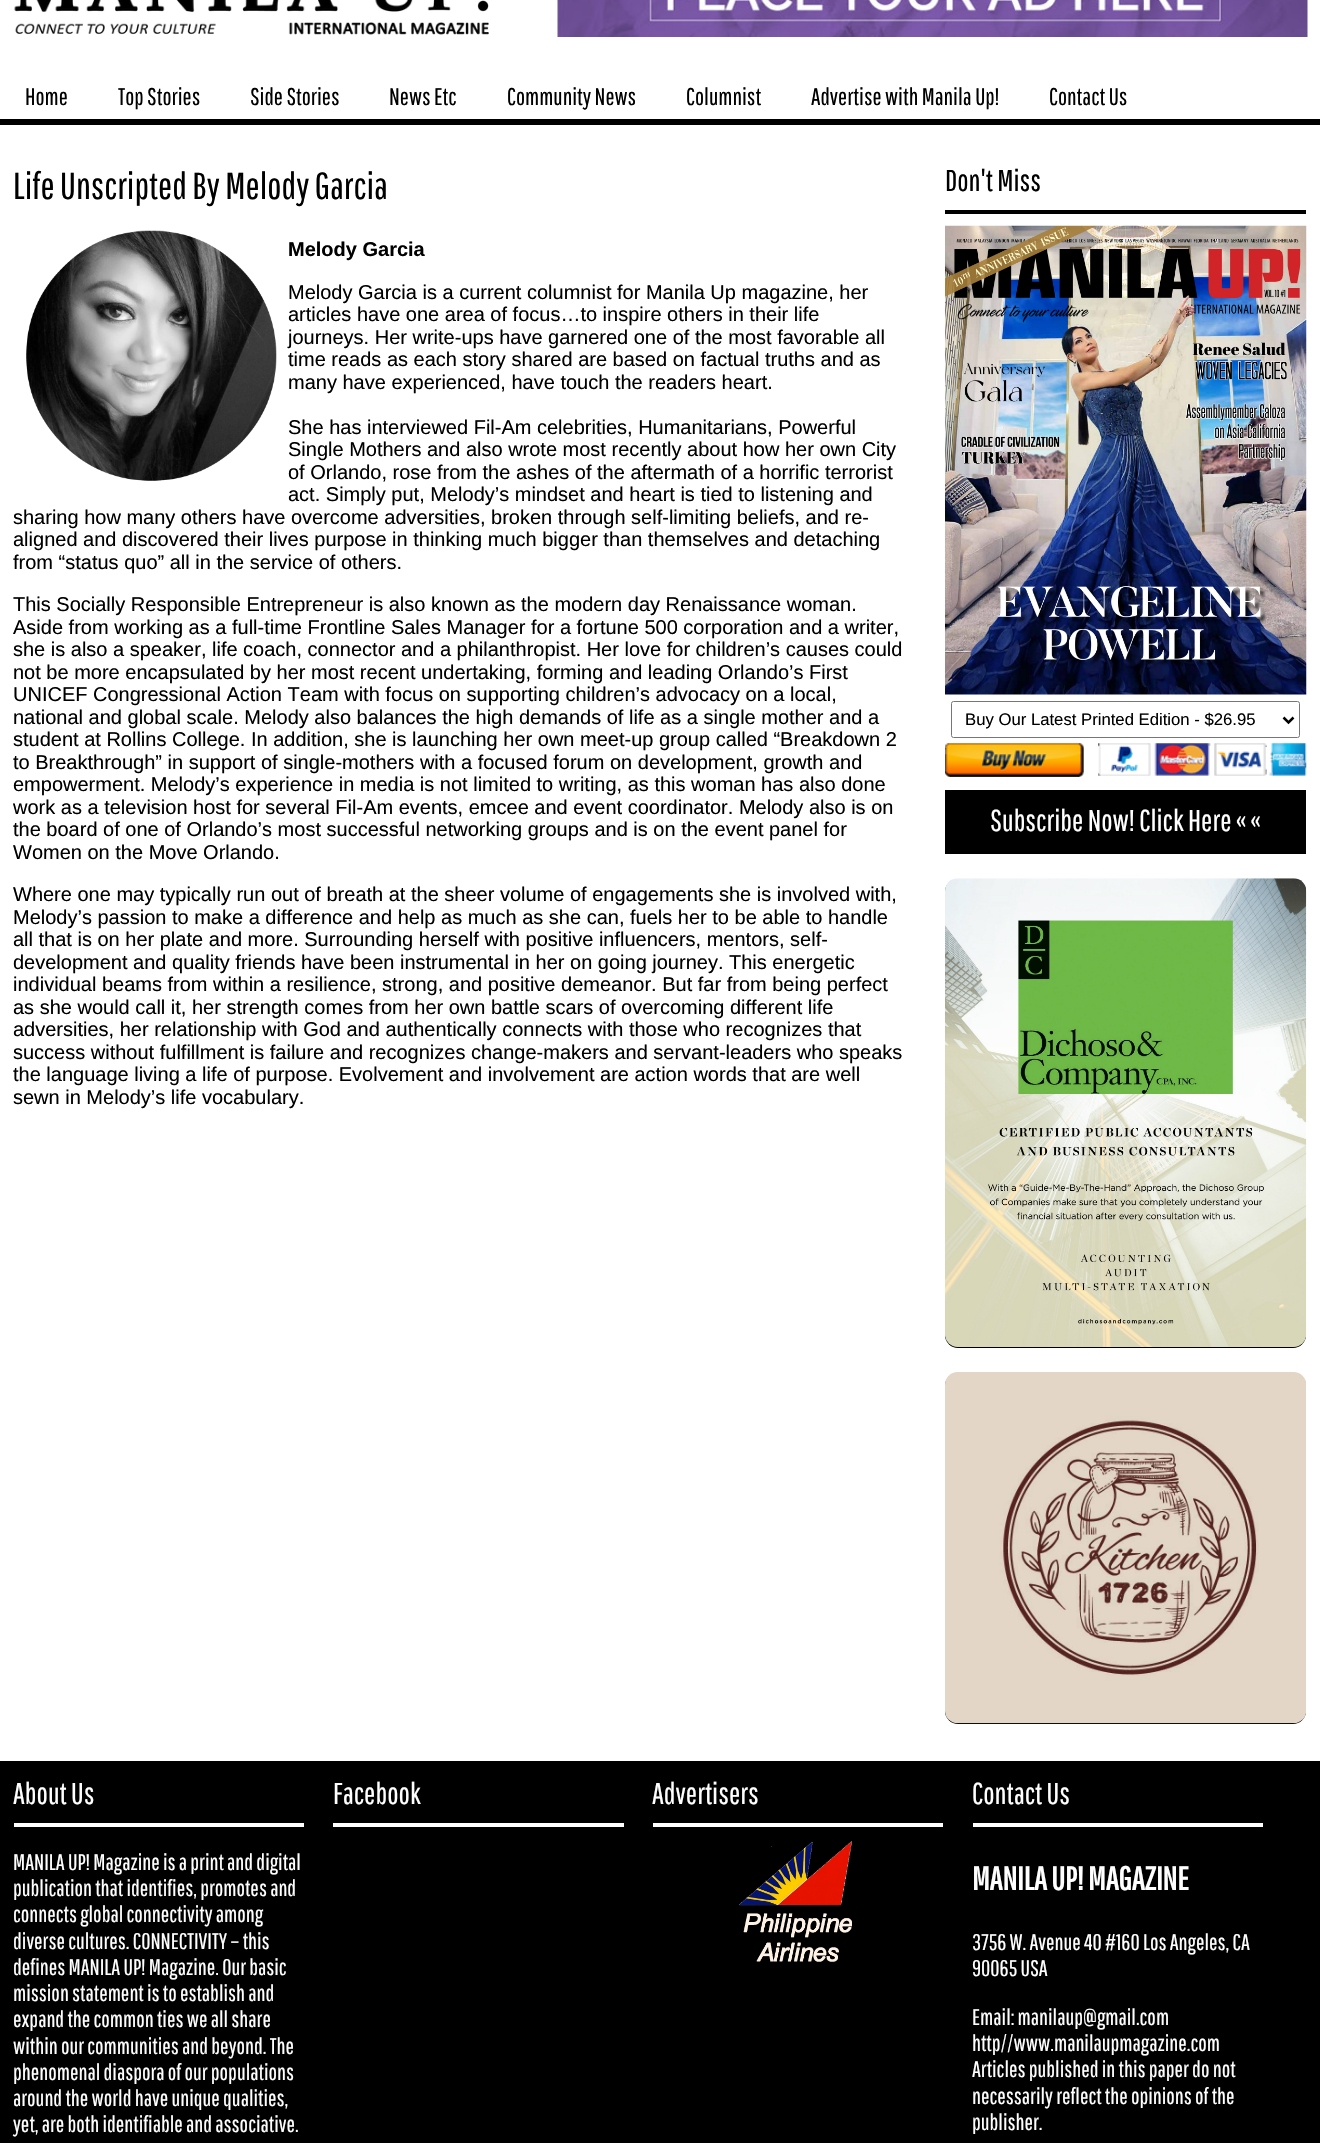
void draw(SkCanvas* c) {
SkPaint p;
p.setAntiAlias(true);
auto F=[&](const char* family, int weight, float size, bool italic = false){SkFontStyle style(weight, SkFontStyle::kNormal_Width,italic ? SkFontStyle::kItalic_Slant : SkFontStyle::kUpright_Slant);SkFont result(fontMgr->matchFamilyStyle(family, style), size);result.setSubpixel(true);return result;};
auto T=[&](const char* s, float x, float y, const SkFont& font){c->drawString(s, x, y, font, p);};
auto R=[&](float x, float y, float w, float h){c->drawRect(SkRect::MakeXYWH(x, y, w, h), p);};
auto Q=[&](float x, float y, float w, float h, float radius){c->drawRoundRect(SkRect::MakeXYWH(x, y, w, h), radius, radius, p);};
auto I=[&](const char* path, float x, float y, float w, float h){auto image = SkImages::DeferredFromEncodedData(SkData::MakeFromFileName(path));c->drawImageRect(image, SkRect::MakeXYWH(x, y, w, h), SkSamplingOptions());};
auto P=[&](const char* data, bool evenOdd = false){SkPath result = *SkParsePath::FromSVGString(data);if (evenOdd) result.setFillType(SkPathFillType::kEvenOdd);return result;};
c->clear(0xffffffff);
I("1.png",14,0,475,35);
I("2.png",557,0,751,37);
p.setColor(0xff000000);
R(0,119,1320,6);
auto f1 = F("Pathway Gothic One",400,24);
T("Home",25,105,f1);
T("Top Stories",118,105,f1);
T("Side Stories",250,105,f1);
T("News Etc",389,105,f1);
T("Community News",507,105,f1);
T("Columnist",686,105,f1);
T("Advertise with Manila Up!",811,105,f1);
T("Contact Us",1049,105,f1);
auto f2 = F("Pathway Gothic One",400,37.5);
T("Life Unscripted By Melody Garcia",13,199,f2);
I("3.png",26,230,251,251);
auto f3 = F("Liberation Sans",700,20);
T("Melody Garcia",288,256,f3);
auto f4 = F("Liberation Sans",400,20);
T("Melody Garcia is a current columnist for Manila Up magazine, her",288,299,f4);
T("articles have one area of focus…to inspire others in their life",288,321,f4);
T("journeys. Her write-ups have garnered one of the most favorable all",288,344,f4);
T("time reads as each story shared are based on factual truths and as",288,366,f4);
T("many have experienced, have touch the readers heart.",288,389,f4);
T("She has interviewed Fil-Am celebrities, Humanitarians, Powerful",288,434,f4);
T("Single Mothers and also wrote most recently about how her own City",288,456,f4);
T("of Orlando, rose from the ashes of the aftermath of a horrific terrorist",288,479,f4);
T("act. Simply put, Melody’s mindset and heart is tied to listening and",288,501,f4);
T("sharing how many others have overcome adversities, broken through self-limiting beliefs, and re-",13,524,f4);
T("aligned and discovered their lives purpose in thinking much bigger than themselves and detaching",13,546,f4);
T("from “status quo” all in the service of others.",13,569,f4);
T("This Socially Responsible Entrepreneur is also known as the modern day Renaissance woman.",13,611,f4);
T("Aside from working as a full-time Frontline Sales Manager for a fortune 500 corporation and a writer,",13,634,f4);
T("she is also a speaker, life coach, connector and a philanthropist. Her love for children’s causes could",13,656,f4);
T("not be more encapsulated by her most recent undertaking, forming and leading Orlando’s First",13,679,f4);
T("UNICEF Congressional Action Team with focus on supporting children’s advocacy on a local,",13,701,f4);
T("national and global scale. Melody also balances the high demands of life as a single mother and a",13,724,f4);
T("student at Rollins College. In addition, she is launching her own meet-up group called “Breakdown 2",13,746,f4);
T("to Breakthrough” in support of single-mothers with a focused forum on development, growth and",13,769,f4);
T("empowerment. Melody’s experience in media is not limited to writing, as this woman has also done",13,791,f4);
T("work as a television host for several Fil-Am events, emcee and event coordinator. Melody also is on",13,814,f4);
T("the board of one of Orlando’s most successful networking groups and is on the event panel for",13,836,f4);
T("Women on the Move Orlando.",13,859,f4);
T("Where one may typically run out of breath at the sheer volume of engagements she is involved with,",13,901,f4);
T("Melody’s passion to make a difference and help as much as she can, fuels her to be able to handle",13,924,f4);
T("all that is on her plate and more. Surrounding herself with positive influencers, mentors, self-",13,946,f4);
T("development and quality friends have been instrumental in her on going journey. This energetic",13,969,f4);
T("individual beams from within a resilience, strong, and positive demeanor. But far from being perfect",13,991,f4);
T("as she would call it, her strength comes from her own battle scars of overcoming different life",13,1014,f4);
T("adversities, her relationship with God and authentically connects with those who recognizes that",13,1036,f4);
T("success without fulfillment is failure and recognizes change-makers and servant-leaders who speaks",13,1059,f4);
T("the language living a life of purpose. Evolvement and involvement are action words that are well",13,1081,f4);
T("sewn in Melody’s life vocabulary.",13,1104,f4);
R(945,210,361,4);
auto f5 = F("Pathway Gothic One",400,30);
T("Don't Miss",945,191,f5);
I("4.png",945,225,362,470);
p.setStroke(true);
p.setStrokeWidth(1);
p.setColor(0xff767676);
c->drawRoundRect(SkRect::MakeXYWH(951.5,701.5,348,36),2,2,p);
p.setStrokeWidth(2.5);
p.setColor(0xff000000);
c->drawPath(P("M1283.5 717.5l5 5l5-5"),p);
auto f6 = F("Liberation Sans",400,16.7);
p.setStroke(false);
T("Buy Our Latest Printed Edition - $26.95",965,725,f6);
I("5.png",945,743,362,34);
R(945,790,361,64);
p.setColor(0xffffffff);
T("Subscribe Now! Click Here « «",990,831,f5);
p.setColor(0xff000000);
Q(945,879,361,469,13);
I("6.png",945,878,362,469);
Q(945,1373,361,351,13);
I("7.png",945,1372,361,352);
R(0,1761,1320,382);
p.setColor(0xffffffff);
R(14,1823,290,4);
T("About Us",13,1804,f5);
auto f7 = F("Pathway Gothic One",400,22.5);
T("MANILA UP! Magazine is a print and digital",13,1870,f7);
T("publication that identifies, promotes and",13,1896,f7);
T("connects global connectivity among",13,1922,f7);
T("diverse cultures. CONNECTIVITY – this",13,1949,f7);
T("defines MANILA UP! Magazine. Our basic",13,1975,f7);
T("mission statement is to establish and",13,2001,f7);
T("expand the common ties we all share",13,2027,f7);
T("within our communities and beyond. The",13,2054,f7);
T("phenomenal diaspora of our populations",13,2080,f7);
T("around the world have unique qualities,",13,2106,f7);
T("yet, are both identifiable and associative.",13,2132,f7);
R(333,1823,291,4);
T("Facebook",333,1804,f5);
R(653,1823,290,4);
T("Advertisers",652,1804,f5);
I("8.png",739,1841,113,121);
R(973,1823,290,4);
T("Contact Us",972,1804,f5);
auto f8 = F("Pathway Gothic One",700,32.5);
T("MANILA UP! MAGAZINE",972,1890,f8);
T("3756 W. Avenue 40 #160 Los Angeles, CA",972,1950,f7);
T("90065 USA",972,1976,f7);
T("Email: manilaup@gmail.com",972,2025,f7);
T("http//www.manilaupmagazine.com",972,2051,f7);
T("Articles published in this paper do not",972,2077,f7);
T("necessarily reflect the opinions of the",972,2104,f7);
T("publisher.",972,2130,f7);
}
